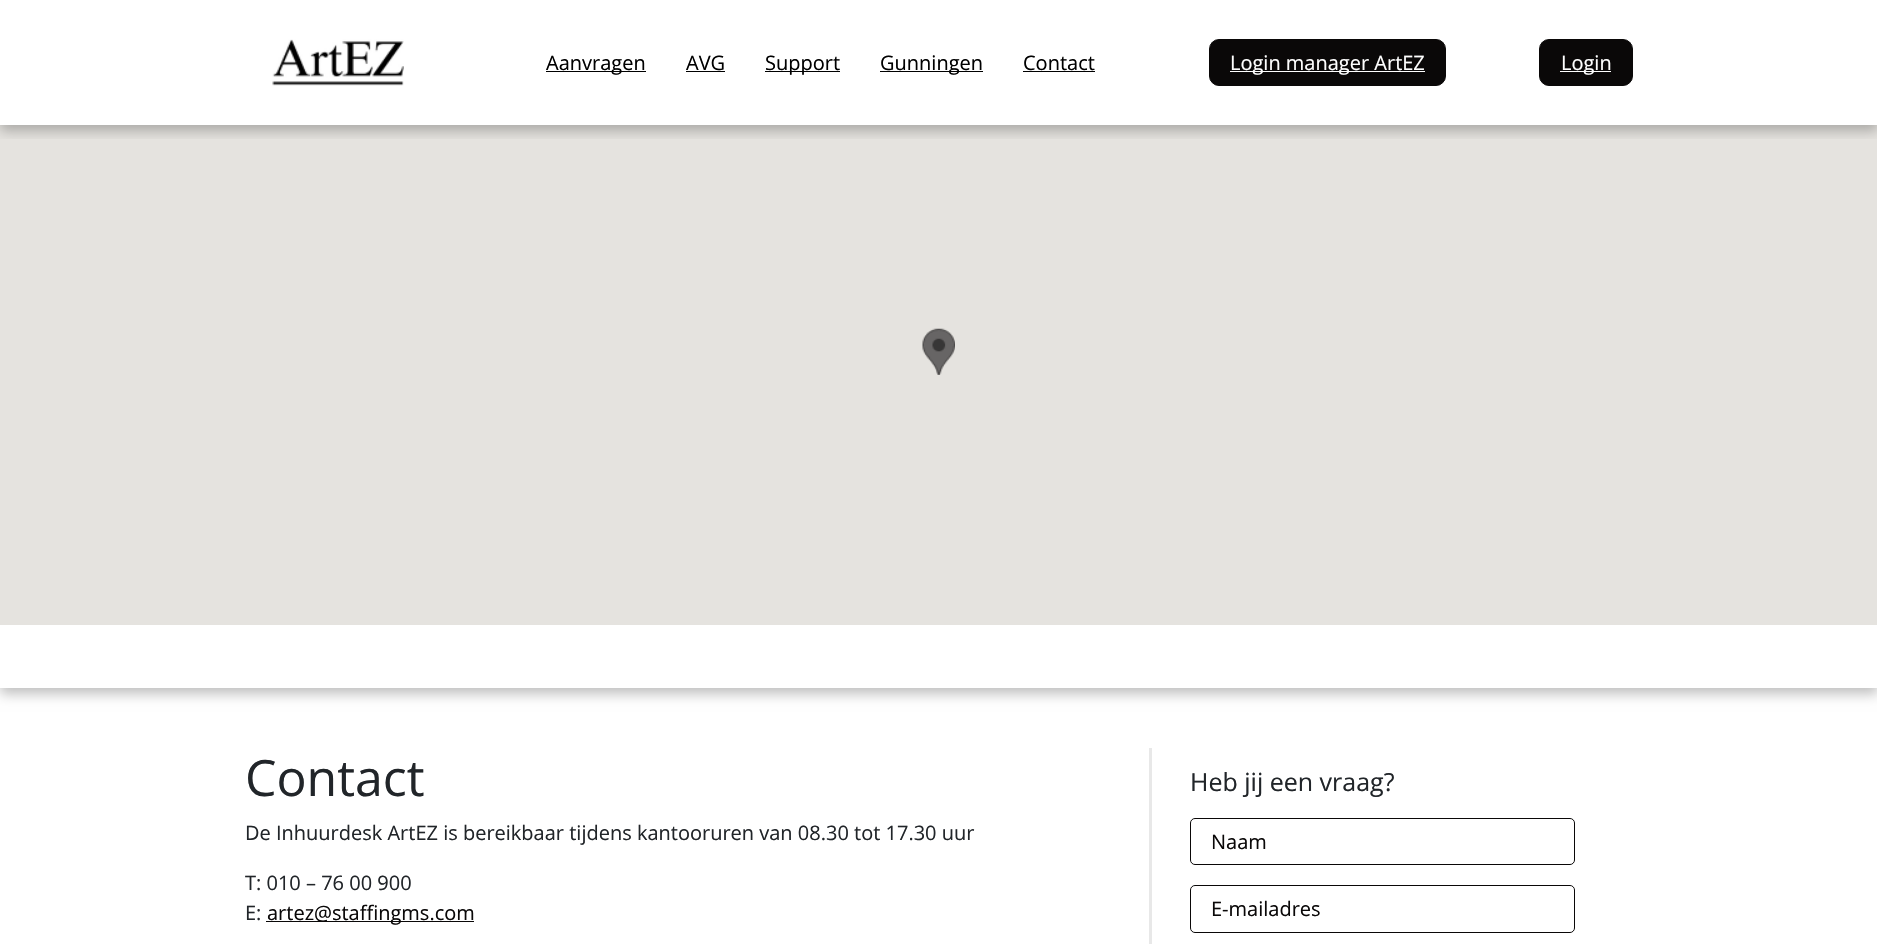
void draw(SkCanvas* c) {
SkPaint p;
p.setAntiAlias(true);
auto F=[&](const char* family, int weight, float size, bool italic = false){SkFontStyle style(weight, SkFontStyle::kNormal_Width,italic ? SkFontStyle::kItalic_Slant : SkFontStyle::kUpright_Slant);SkFont result(fontMgr->matchFamilyStyle(family, style), size);result.setSubpixel(true);return result;};
auto T=[&](const char* s, float x, float y, const SkFont& font){c->drawString(s, x, y, font, p);};
auto R=[&](float x, float y, float w, float h){c->drawRect(SkRect::MakeXYWH(x, y, w, h), p);};
auto I=[&](const char* path, float x, float y, float w, float h){auto image = SkImages::DeferredFromEncodedData(SkData::MakeFromFileName(path));c->drawImageRect(image, SkRect::MakeXYWH(x, y, w, h), SkSamplingOptions());};
auto P=[&](const char* data, bool evenOdd = false){SkPath result = *SkParsePath::FromSVGString(data);if (evenOdd) result.setFillType(SkPathFillType::kEvenOdd);return result;};
c->clear(0xffffffff);
c->save();
c->clipPath(P("M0 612h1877v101h-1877zm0 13h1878v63h-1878z",true),true);
p.setColor(0x40000000);
p.setMaskFilter(SkMaskFilter::MakeBlur(kNormal_SkBlurStyle, 6));
c->drawRect(SkRect::MakeXYWH(0,631,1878,63),p);
p.setMaskFilter(nullptr);
c->restore();
p.setColor(0xffe5e3df);
R(0,125,1877,500);
c->save();
c->clipRect(SkRect::MakeXYWH(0,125,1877,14));
p.setColor(0x40000000);
p.setMaskFilter(SkMaskFilter::MakeBlur(kNormal_SkBlurStyle, 6));
c->drawRect(SkRect::MakeXYWH(0,6,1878,125),p);
p.setMaskFilter(nullptr);
c->restore();
I("1.png",272,39,132,47);
p.setColor(0xff000000);
R(546,71,100,1);
auto f1 = F("Open Sans",400,20);
T("Aanvragen",546,70,f1);
T("AVG",686,70,f1);
R(686,71,39,1);
R(765,71,75,1);
T("Support",765,70,f1);
R(880,71,103,1);
T("Gunningen",880,70,f1);
T("Contact",1023,70,f1);
R(1023,71,72,1);
p.setColor(0xff0a0808);
c->drawRoundRect(SkRect::MakeXYWH(1209.5,39.5,236,46),9.5,9.5,p);
p.setStroke(true);
p.setStrokeWidth(1);
c->drawRoundRect(SkRect::MakeXYWH(1209.5,39.5,236,46),9.5,9.5,p);
p.setStroke(false);
p.setColor(0xffffffff);
R(1230,71,195,1);
T("Login manager ArtEZ",1230,70,f1);
p.setColor(0xff0a0808);
c->drawRoundRect(SkRect::MakeXYWH(1539.5,39.5,93,46),9.5,9.5,p);
p.setStroke(true);
c->drawRoundRect(SkRect::MakeXYWH(1539.5,39.5,93,46),9.5,9.5,p);
p.setStroke(false);
p.setColor(0xffffffff);
R(1560,71,51,1);
T("Login",1561,70,f1);
I("2.png",922,328,33,47);
p.setColor(0xffe8e8e8);
R(1149,748,3,196);
auto f2 = F("Open Sans",400,50);
p.setColor(0xff212529);
T("Contact",245,796,f2);
T("De Inhuurdesk ArtEZ is bereikbaar tijdens kantooruren van 08.30 tot 17.30 uur",245,840,f1);
T("T: 010 – 76 00 900",245,890,f1);
T("E:",245,920,f1);
p.setColor(0xff0a0808);
R(266,921,208,1);
T("artez@staffingms.com",267,920,f1);
auto f3 = F("Open Sans",400,25);
p.setColor(0xff212529);
T("Heb jij een vraag?",1190,791,f3);
p.setStroke(true);
p.setColor(0xff0a0808);
c->drawRoundRect(SkRect::MakeXYWH(1190.5,818.5,384,46),4.5,4.5,p);
p.setStroke(false);
T("Naam",1211,849,f1);
p.setStroke(true);
c->drawRoundRect(SkRect::MakeXYWH(1190.5,885.5,384,47),4.5,4.5,p);
p.setStroke(false);
T("E-mailadres",1211,916,f1);
}
